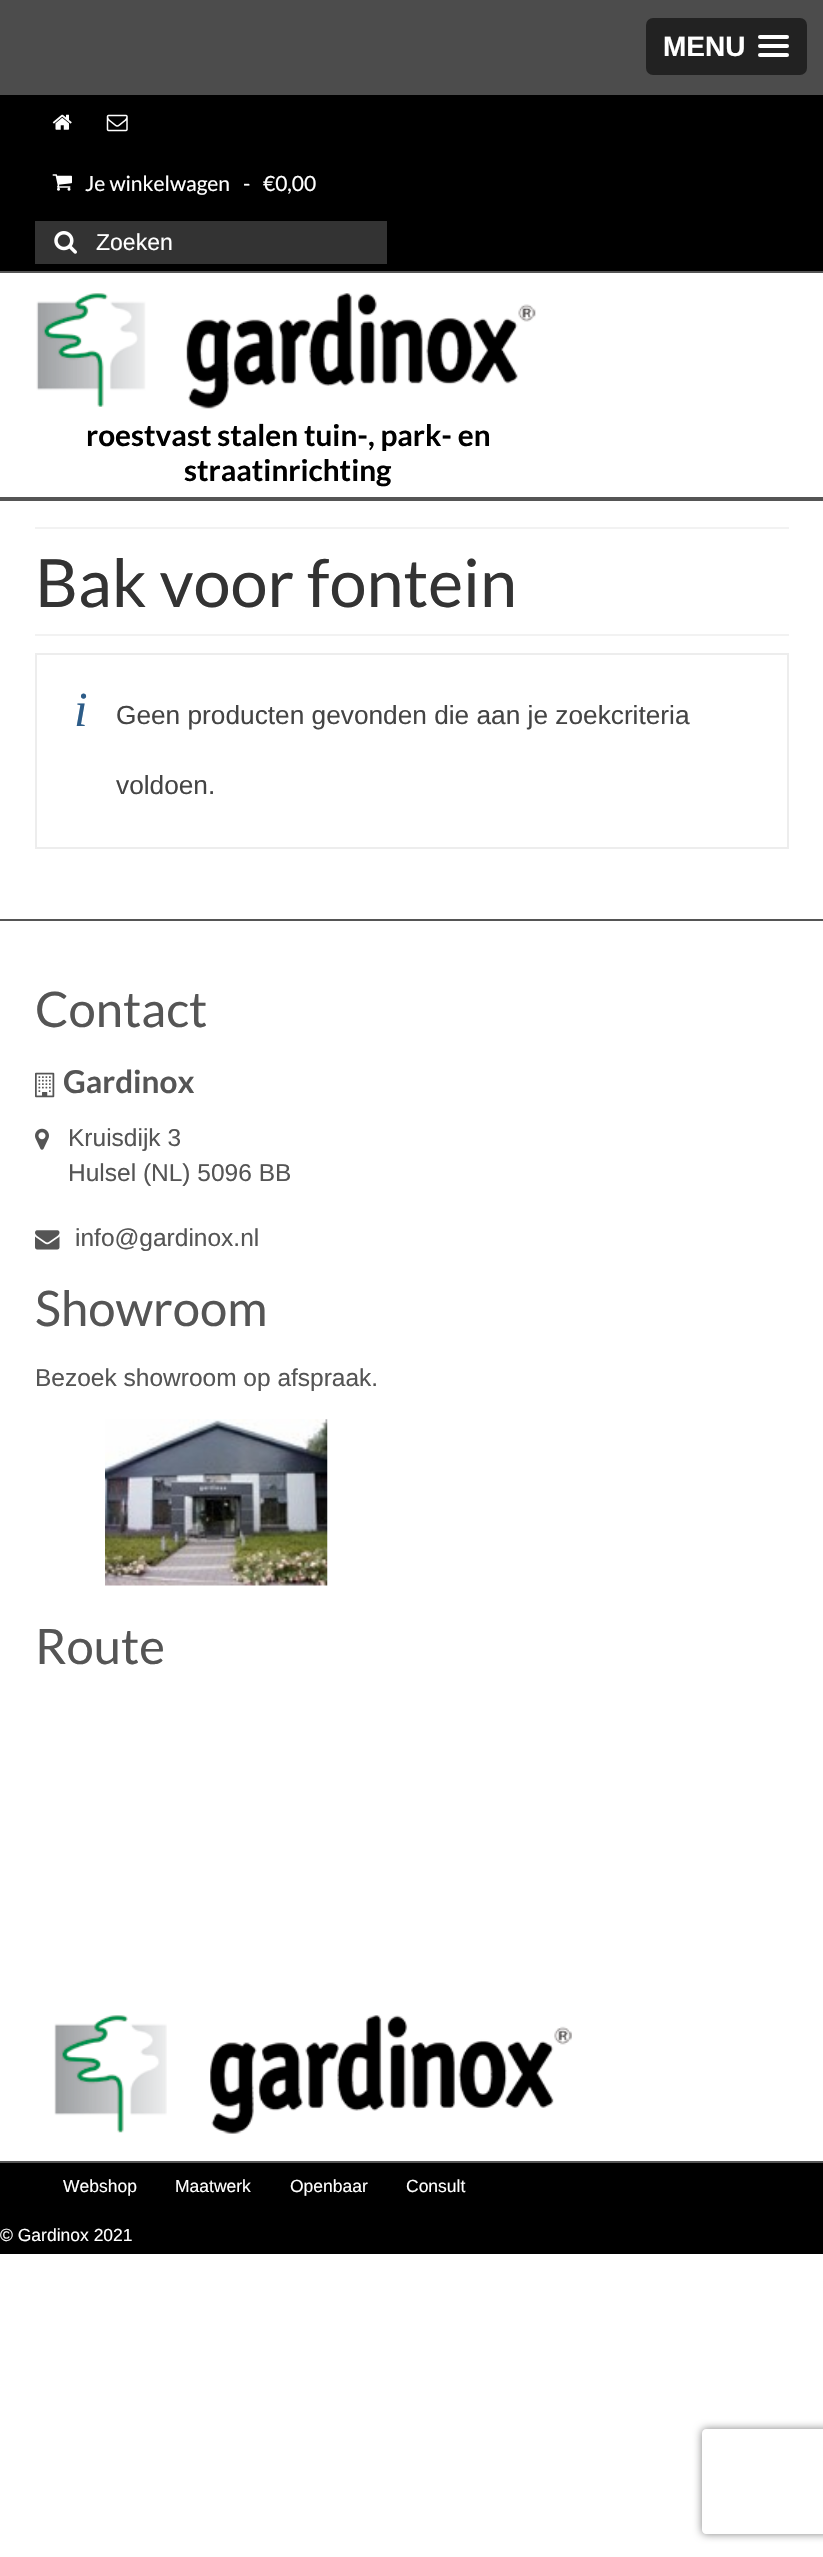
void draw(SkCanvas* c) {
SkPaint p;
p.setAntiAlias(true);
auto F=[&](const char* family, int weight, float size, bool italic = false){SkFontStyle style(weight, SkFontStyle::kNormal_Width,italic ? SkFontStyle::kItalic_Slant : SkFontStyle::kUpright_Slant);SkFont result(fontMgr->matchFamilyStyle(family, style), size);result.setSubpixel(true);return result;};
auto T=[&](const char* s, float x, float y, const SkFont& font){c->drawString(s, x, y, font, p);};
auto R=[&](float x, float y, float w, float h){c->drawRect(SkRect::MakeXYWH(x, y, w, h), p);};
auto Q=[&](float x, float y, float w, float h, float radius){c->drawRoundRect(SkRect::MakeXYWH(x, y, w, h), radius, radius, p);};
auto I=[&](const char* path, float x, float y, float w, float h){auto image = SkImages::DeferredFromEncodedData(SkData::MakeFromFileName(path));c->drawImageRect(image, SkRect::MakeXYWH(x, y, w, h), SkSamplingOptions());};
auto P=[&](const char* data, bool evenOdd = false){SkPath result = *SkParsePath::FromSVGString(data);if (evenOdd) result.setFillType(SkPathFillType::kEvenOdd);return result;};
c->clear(0xffffffff);
p.setColor(0xff4c4c4c);
R(0,0,823,95);
p.setColor(0xff222222);
Q(646,18,161,57,7);
auto f1 = F("Liberation Sans",700,28);
p.setColor(0xffffffff);
T("MENU",663,56,f1);
Q(758,35,31,4,2);
Q(758,44,31,4,2);
Q(758,53,31,4,2);
p.setColor(0xff000000);
R(0,95,823,176);
p.setColor(0xff555555);
R(0,271,823,2);
I("1.png",52,114,20,16);
I("2.png",106,114,22,18);
I("3.png",52,174,20,17);
auto f2 = F("Lato",400,21);
p.setColor(0xffffffff);
T("Je winkelwagen",85,191,f2);
T("-",243,191,f2);
T("€0,00",263,191,f2);
p.setColor(0xff333333);
R(35,221,352,43);
I("4.png",54,231,23,23);
auto f3 = F("Liberation Sans",400,23);
p.setColor(0xffffffff);
T("Zoeken",96,250,f3);
I("5.png",36,293,500,116);
auto f4 = F("Lato",700,29.75);
p.setColor(0xff000000);
T("roestvast stalen tuin-, park- en",86,446,f4);
T("straatinrichting",184,481,f4);
p.setColor(0xff555555);
R(0,497,823,4);
p.setColor(0xfff2f2f2);
R(35,527,754,2);
R(35,634,754,2);
auto f5 = F("Lato",400,66.5);
p.setColor(0xff333333);
T("Bak voor fontein",35,607,f5);
p.setStroke(true);
p.setStrokeWidth(2);
p.setColor(0xffededed);
c->drawRect(SkRect::MakeXYWH(36,654,752,194),p);
auto f6 = F("Liberation Serif",400,49,true);
p.setStroke(false);
p.setColor(0xff2d5c88);
T("i",74,726,f6);
auto f7 = F("Liberation Sans",400,26.25);
p.setColor(0xff444444);
T("Geen producten gevonden die aan je zoekcriteria",116,724,f7);
T("voldoen.",116,794,f7);
p.setColor(0xff555555);
R(0,919,823,2);
R(0,2161,823,2);
auto f8 = F("Lato",400,49);
T("Contact",35,1027,f8);
I("6.png",35,1072,20,26);
auto f9 = F("Lato",700,31.5);
T("Gardinox",63,1093,f9);
I("7.png",35,1128,14,22);
auto f10 = F("Liberation Sans",400,24.5);
T("Kruisdijk 3",68,1146,f10);
T("Hulsel (NL) 5096 BB",68,1181,f10);
I("8.png",35,1230,25,20);
T("info@gardinox.nl",75,1246,f10);
T("Showroom",35,1326,f8);
T("Bezoek showroom op afspraak.",35,1386,f10);
I("9.png",105,1419,223,167);
T("Route",35,1664,f8);
I("10.png",54,2015,518,119);
p.setColor(0xff000000);
R(0,2163,823,91);
auto f11 = F("Liberation Sans",400,17.5);
p.setColor(0xffffffff);
T("Webshop",63,2192,f11);
T("Maatwerk",175,2192,f11);
T("Openbaar",290,2192,f11);
T("Consult",406,2192,f11);
T("© Gardinox 2021",0,2241,f11);
c->save();
c->clipPath(P("M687 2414h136v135h-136zm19 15h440c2 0 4 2 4 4v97c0 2-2 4-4 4h-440c-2 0-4-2-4-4v-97c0-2 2-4 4-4z",true),true);
p.setColor(0xff808080);
p.setMaskFilter(SkMaskFilter::MakeBlur(kNormal_SkBlurStyle, 4.5));
c->drawRoundRect(SkRect::MakeXYWH(702,2429,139,105),4,4,p);
p.setMaskFilter(nullptr);
c->restore();
}
